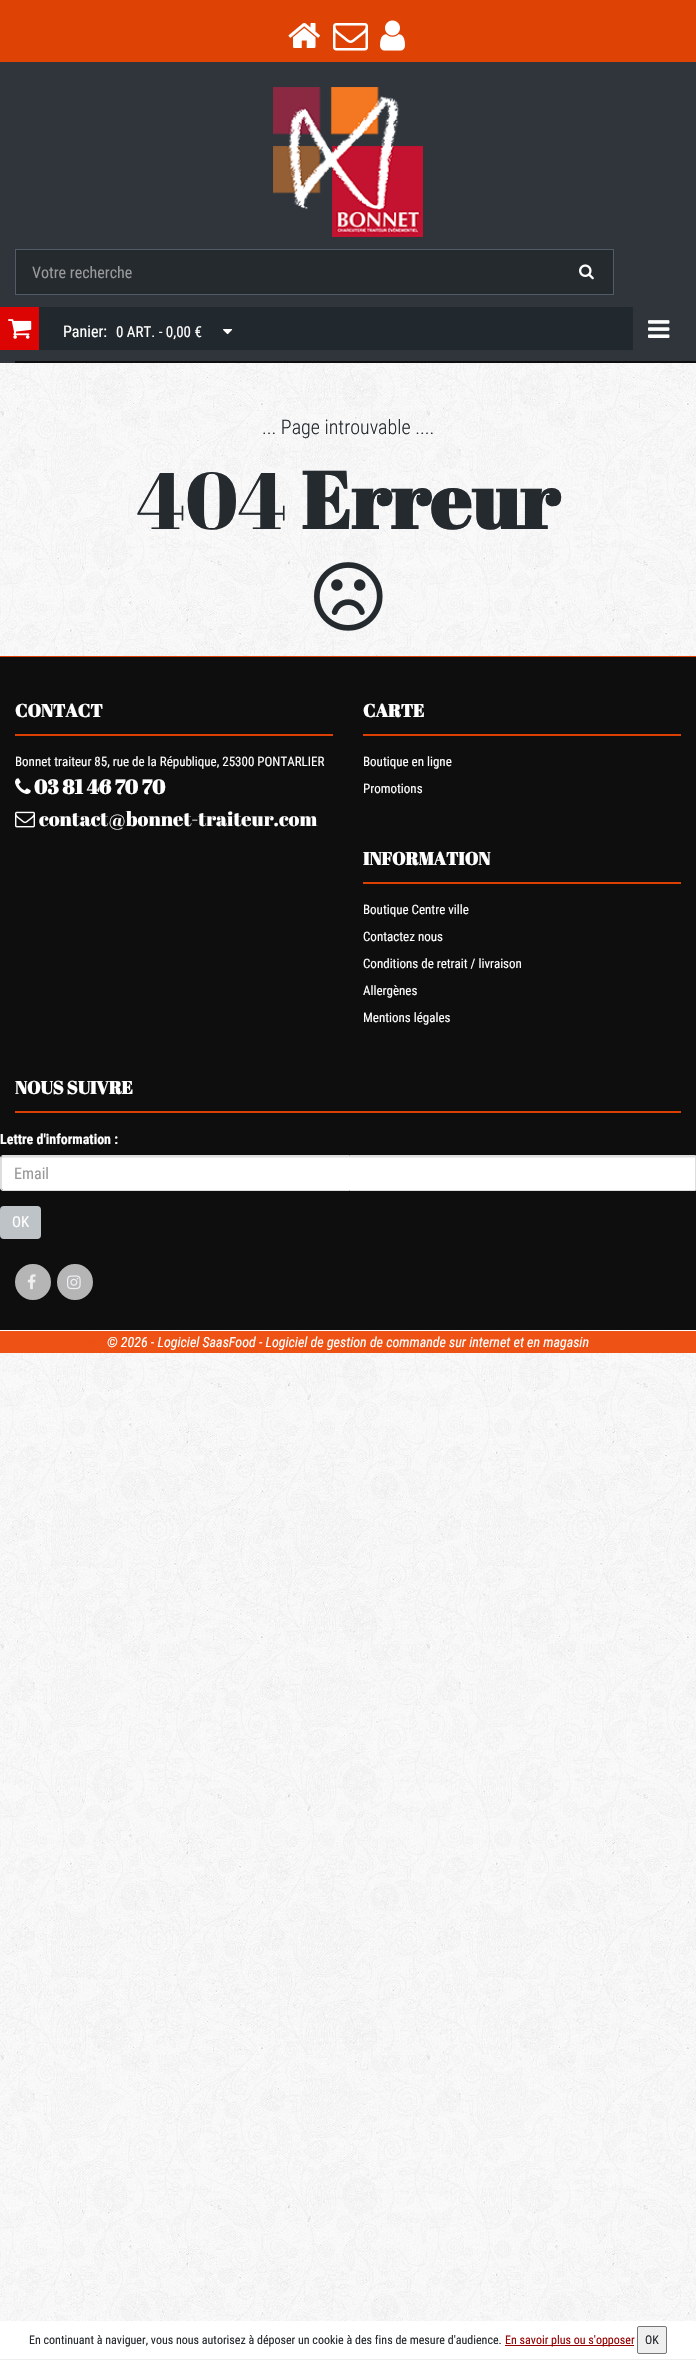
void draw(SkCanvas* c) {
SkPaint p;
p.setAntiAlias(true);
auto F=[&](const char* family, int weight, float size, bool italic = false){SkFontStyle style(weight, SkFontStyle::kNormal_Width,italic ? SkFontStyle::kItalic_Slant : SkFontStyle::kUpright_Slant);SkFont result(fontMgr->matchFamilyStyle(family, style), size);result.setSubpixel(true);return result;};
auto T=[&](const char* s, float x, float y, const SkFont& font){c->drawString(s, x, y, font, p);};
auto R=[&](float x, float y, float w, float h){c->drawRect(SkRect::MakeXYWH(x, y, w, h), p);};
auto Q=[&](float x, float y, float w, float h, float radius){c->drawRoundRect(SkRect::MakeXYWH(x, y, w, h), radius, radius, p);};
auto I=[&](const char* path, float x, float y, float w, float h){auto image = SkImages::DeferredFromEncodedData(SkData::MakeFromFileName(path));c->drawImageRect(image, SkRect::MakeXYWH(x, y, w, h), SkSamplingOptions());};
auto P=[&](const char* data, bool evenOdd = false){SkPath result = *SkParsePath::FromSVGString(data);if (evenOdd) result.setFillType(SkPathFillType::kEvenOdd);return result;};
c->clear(0xffffffff);
I("1.png",0,363,696,1958);
p.setColor(0xff2f353b);
R(0,62,696,301);
p.setColor(0xffde4205);
R(0,0,696,62);
I("2.png",288,22,32,26);
I("3.png",333,23,35,28);
I("4.png",380,20,25,31);
I("5.png",273,87,150,150);
p.setColor(0xff252a2f);
R(16,250,597,44);
p.setColor(0xff525c66);
R(15,249,599,1);
R(15,294,545,1);
R(15,249,1,46);
auto f1 = F("Roboto Condensed",400,16);
p.setColor(0xff999999);
T("Votre recherche",32,278,f1);
p.setColor(0xff525c66);
R(613,249,1,46);
R(559,294,55,1);
I("6.png",579,264,15,16);
p.setColor(0xff22292e);
R(39,307,594,43);
p.setColor(0xffdd0504);
R(0,307,39,43);
I("7.png",8,319,24,20);
p.setColor(0xffffffff);
T("Panier:",63,337,f1);
auto f2 = F("Roboto Condensed",400,15);
T("0 ART. - 0,00 €",116,337,f2);
I("8.png",223,329,10,6);
p.setColor(0xff0e0e0e);
R(15,361,681,2);
I("9.png",648,320,22,18);
auto f3 = F("Roboto Condensed",300,20);
p.setColor(0xff252a2f);
T("... Page introuvable ....",262,434,f3);
auto f4 = F("Abril Fatface",400,80);
T("404",137,529,f4);
auto f5 = F("Abril Fatface",700,80);
T("Erreur",301,529,f5);
I("10.png",314,562,69,69);
p.setColor(0xff0e0e0e);
R(0,657,696,673);
p.setColor(0xffdb3f01);
R(0,656,696,1);
p.setColor(0xffffffff);
R(0,1330,696,1);
p.setColor(0xffdb3f01);
R(15,734,318,2);
auto f6 = F("Abril Fatface",700,18);
p.setColor(0xffffffff);
T("CONTACT",15,717,f6);
auto f7 = F("Roboto Condensed",400,13);
T("Bonnet traiteur 85, rue de la République, 25300 PONTARLIER",15,766,f7);
I("11.png",15,778,16,16);
auto f8 = F("Abril Fatface",700,20);
T("03 81 46 70 70",34,794,f8);
I("12.png",15,811,20,17);
auto f9 = F("Abril Fatface",400,20);
T("contact@bonnet-traiteur.com",39,826,f9);
p.setColor(0xffdb3f01);
R(363,734,318,2);
p.setColor(0xffffffff);
T("CARTE",363,717,f6);
T("Boutique en ligne",363,766,f7);
T("Promotions",363,793,f7);
p.setColor(0xffdb3f01);
R(363,882,318,2);
p.setColor(0xffffffff);
T("INFORMATION",363,865,f6);
T("Boutique Centre ville",363,914,f7);
T("Contactez nous",363,941,f7);
T("Conditions de retrait / livraison",363,968,f7);
T("Allergènes",363,995,f7);
T("Mentions légales",363,1022,f7);
p.setColor(0xffdb3f01);
R(15,1111,666,2);
p.setColor(0xffffffff);
T("NOUS SUIVRE",15,1094,f6);
auto f10 = F("Roboto Condensed",700,14);
T("Lettre d'information :",0,1144,f10);
c->drawPath(P("M3 1157h692v33h-692c-1 0-1-1-1-2v-30c0-1 0-1 1-1z"),p);
p.setColor(0x12000000);
c->drawPath(P("M3 1158h692v-1h-692c-1 0-1 1-1 2c0-1 0-1 1-1z"),p);
p.setStroke(true);
p.setStrokeWidth(1);
p.setColor(0xffdddddd);
c->drawPath(P("M3 1155.5h692.5v35h-692.5c-1.5 0-2.5-1-2.5-2.5v-30c0-1.5 1-2.5 2.5-2.5z"),p);
p.setStroke(false);
R(2,1156,694,1);
R(1,1157,1,33);
p.setColor(0xff999999);
T("Email",14,1179,f1);
p.setColor(0xffbdc3c7);
Q(0,1206,41,33,4);
p.setColor(0xffffffff);
T("OK",12,1227,f2);
p.setColor(0xffb5b5b5);
c->drawCircle(33,1282,17,p);
p.setStroke(true);
p.setStrokeWidth(2);
c->drawCircle(33,1282,17,p);
I("13.png",27,1274,9,16);
p.setStroke(false);
c->drawCircle(75,1282,17,p);
p.setStroke(true);
c->drawCircle(75,1282,17,p);
I("14.png",67,1275,14,15);
p.setStroke(false);
p.setColor(0xebed4300);
R(0,1331,696,22);
auto f11 = F("Roboto Condensed",400,14,true);
p.setColor(0xffffffff);
T("© 2026 - Logiciel SaasFood - Logiciel de gestion de commande sur internet et en magasin",107,1347,f11);
p.setColor(0xffeeeeee);
R(0,2359,696,1);
auto f12 = F("Roboto Condensed",400,12);
p.setColor(0xff252a2f);
T("En continuant à naviguer, vous nous autorisez à déposer un cookie à des fins de mesure d'audience.",29,2344,f12);
p.setColor(0xff960303);
R(505,2345,129,1);
T("En savoir plus ou s'opposer",505,2344,f12);
p.setColor(0xffefefef);
c->drawRoundRect(SkRect::MakeXYWH(637.5,2326.5,29,27),1.5,1.5,p);
p.setStroke(true);
p.setStrokeWidth(1);
p.setColor(0xff767676);
c->drawRoundRect(SkRect::MakeXYWH(637.5,2326.5,29,27),1.5,1.5,p);
p.setStroke(false);
p.setColor(0xff252a2f);
T("OK",645,2344,f12);
}
